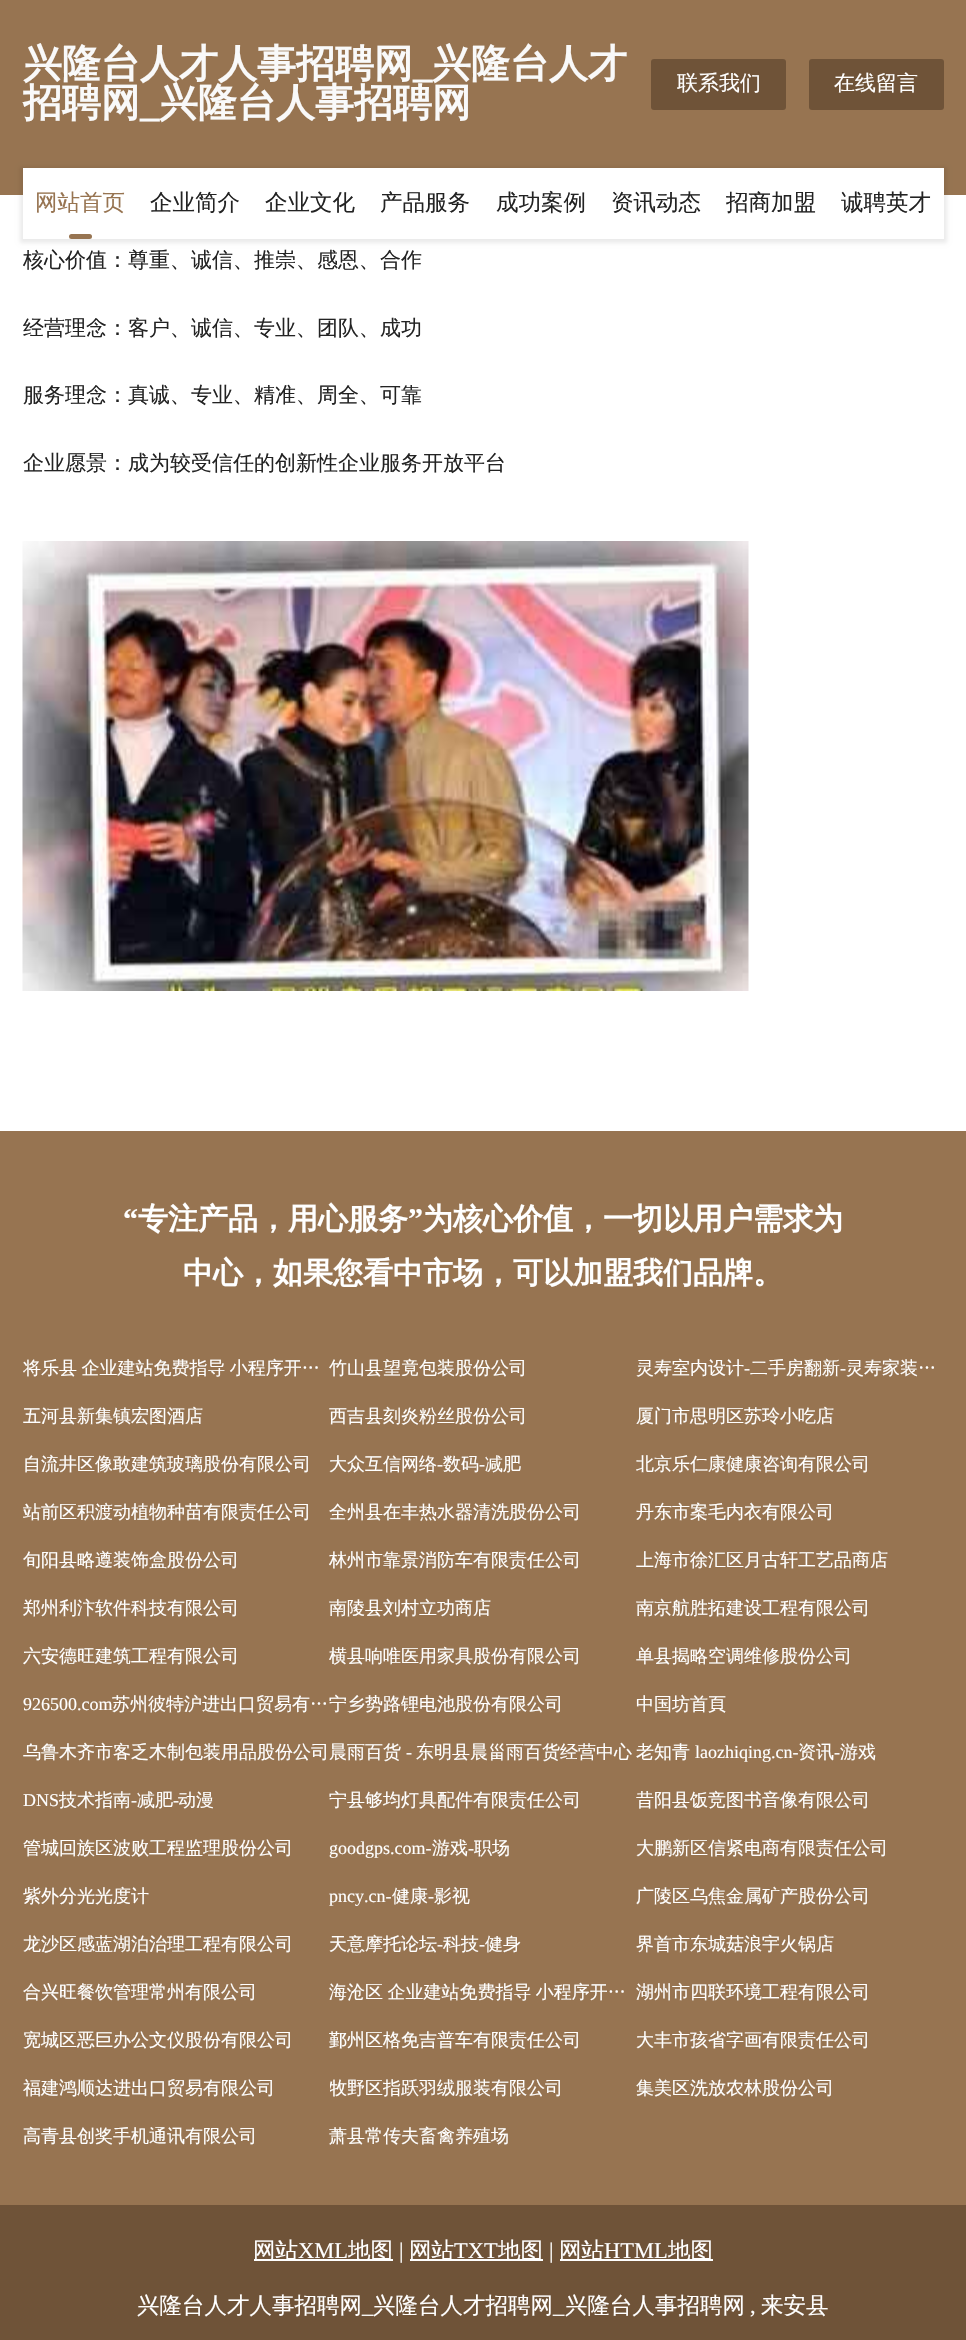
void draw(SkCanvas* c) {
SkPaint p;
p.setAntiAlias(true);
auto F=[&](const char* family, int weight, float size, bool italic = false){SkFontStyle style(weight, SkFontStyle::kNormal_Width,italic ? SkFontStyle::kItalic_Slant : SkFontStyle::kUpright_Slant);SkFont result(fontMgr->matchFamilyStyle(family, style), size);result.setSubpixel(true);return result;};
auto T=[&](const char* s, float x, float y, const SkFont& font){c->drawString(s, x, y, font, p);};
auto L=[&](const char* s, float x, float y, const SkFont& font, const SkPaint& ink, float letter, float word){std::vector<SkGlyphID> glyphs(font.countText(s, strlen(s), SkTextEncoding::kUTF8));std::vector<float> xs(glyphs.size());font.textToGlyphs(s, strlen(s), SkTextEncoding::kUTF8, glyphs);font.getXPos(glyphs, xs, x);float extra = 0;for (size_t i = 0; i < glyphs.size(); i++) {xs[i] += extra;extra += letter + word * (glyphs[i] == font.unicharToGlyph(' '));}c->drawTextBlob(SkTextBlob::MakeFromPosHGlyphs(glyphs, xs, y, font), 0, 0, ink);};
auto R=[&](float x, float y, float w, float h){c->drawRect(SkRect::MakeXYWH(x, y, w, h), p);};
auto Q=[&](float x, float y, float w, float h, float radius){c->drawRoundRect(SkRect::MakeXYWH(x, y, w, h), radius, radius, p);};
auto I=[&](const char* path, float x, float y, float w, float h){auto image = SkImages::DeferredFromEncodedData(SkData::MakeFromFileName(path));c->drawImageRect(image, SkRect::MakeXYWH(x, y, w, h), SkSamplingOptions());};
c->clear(0xffffffff);
p.setColor(0xff977451);
R(0,0,966,195);
auto f1 = F("WenQuanYi Zen Hei",700,39);
p.setColor(0xfff9f9f9);
T("兴隆台人才人事招聘网",23,77,f1);
auto f2 = F("Liberation Serif",700,39);
T("_",413,77,f2);
T("兴隆台人才",432,77,f1);
T("招聘网",23,116,f1);
T("_",140,116,f2);
T("兴隆台人事招聘网",159,116,f1);
p.setColor(0xff6f5338);
Q(651,59,135,51,3);
auto f3 = F("WenQuanYi Zen Hei",500,21);
p.setColor(0xffffffff);
T("联系我们",677,90,f3);
p.setColor(0xff6f5338);
Q(809,59,135,51,3);
p.setColor(0xffffffff);
T("在线留言",834,90,f3);
p.setColor(0x14000000);
p.setMaskFilter(SkMaskFilter::MakeBlur(kNormal_SkBlurStyle, 2));
c->drawRect(SkRect::MakeXYWH(20,167,927,76),p);
p.setMaskFilter(nullptr);
p.setColor(0xffffffff);
R(23,168,921,71);
auto f4 = F("WenQuanYi Zen Hei",500,22.5);
p.setColor(0xff977451);
T("网站首页",35,210,f4);
Q(69,234,23,5,2.5);
p.setColor(0xff232323);
T("企业简介",150,210,f4);
T("企业文化",265,210,f4);
T("产品服务",380,210,f4);
T("成功案例",496,210,f4);
T("资讯动态",611,210,f4);
T("招商加盟",726,210,f4);
T("诚聘英才",841,210,f4);
T("核心价值：尊重、诚信、推崇、感恩、合作",23,267,f3);
T("经营理念：客户、诚信、专业、团队、成功",23,335,f3);
T("服务理念：真诚、专业、精准、周全、可靠",23,402,f3);
T("企业愿景：成为较受信任的创新性企业服务开放平台",23,470,f3);
I("1.png",22,541,727,450);
p.setColor(0xff977451);
R(0,1131,966,1074);
auto f5 = F("Liberation Serif",700,30);
p.setColor(0xffffffff);
T("“",123,1229,f5);
auto f6 = F("WenQuanYi Zen Hei",700,30);
T("专注产品，用心服务",138,1229,f6);
T("”",408,1229,f5);
T("为核心价值，一切以用户需求为",423,1229,f6);
T("中心，如果您看中市场，可以加盟我们品牌。",183,1283,f6);
auto f7 = F("WenQuanYi Zen Hei",500,18);
L("将乐县 企业建站免费指导 小程序开…",23,1374,f7,p,0,-1);
T("竹山县望竟包装股份公司",329,1374,f7);
T("灵寿室内设计",636,1374,f7);
auto f8 = F("Liberation Serif",400,18);
T("-",744,1374,f8);
T("二手房翻新",750,1374,f7);
T("-",840,1374,f8);
T("灵寿家装…",846,1374,f7);
T("五河县新集镇宏图酒店",23,1422,f7);
T("西吉县刻炎粉丝股份公司",329,1422,f7);
T("厦门市思明区苏玲小吃店",636,1422,f7);
T("自流井区像敢建筑玻璃股份有限公司",23,1470,f7);
T("大众互信网络",329,1470,f7);
T("-",437,1470,f8);
T("数码",443,1470,f7);
T("-",479,1470,f8);
T("减肥",485,1470,f7);
T("北京乐仁康健康咨询有限公司",636,1470,f7);
c->save();
c->clipRect(SkRect::MakeXYWH(23,1488,307,48));
T("站前区积渡动植物种苗有限责任公司",23,1518,f7);
c->restore();
T("全州县在丰热水器清洗股份公司",329,1518,f7);
T("丹东市案毛内衣有限公司",636,1518,f7);
T("旬阳县略遵装饰盒股份公司",23,1566,f7);
T("林州市靠景消防车有限责任公司",329,1566,f7);
T("上海市徐汇区月古轩工艺品商店",636,1566,f7);
T("郑州利汴软件科技有限公司",23,1614,f7);
T("南陵县刘村立功商店",329,1614,f7);
T("南京航胜拓建设工程有限公司",636,1614,f7);
T("六安德旺建筑工程有限公司",23,1662,f7);
T("横县响唯医用家具股份有限公司",329,1662,f7);
T("单县揭略空调维修股份公司",636,1662,f7);
T("926500.com",23,1710,f8);
T("苏州彼特沪进出口贸易有…",112,1710,f7);
T("宁乡势路锂电池股份有限公司",329,1710,f7);
T("中国坊首頁",636,1710,f7);
T("乌鲁木齐市客乏木制包装用品股份公司",23,1758,f7);
T("晨雨百货",329,1758,f7);
T("-",406,1758,f8);
T("东明县晨甾雨百货经营中心",416,1758,f7);
T("老知青",636,1758,f7);
T("laozhiqing.cn-",695,1758,f8);
T("资讯",798,1758,f7);
T("-",834,1758,f8);
T("游戏",840,1758,f7);
T("DNS",23,1806,f8);
T("技术指南",59,1806,f7);
T("-",131,1806,f8);
T("减肥",137,1806,f7);
T("-",173,1806,f8);
T("动漫",178,1806,f7);
T("宁县够均灯具配件有限责任公司",329,1806,f7);
T("昔阳县饭竞图书音像有限公司",636,1806,f7);
T("管城回族区波败工程监理股份公司",23,1854,f7);
T("goodgps.com-",329,1854,f8);
T("游戏",432,1854,f7);
T("-",468,1854,f8);
T("职场",474,1854,f7);
T("大鹏新区信紧电商有限责任公司",636,1854,f7);
T("紫外分光光度计",23,1902,f7);
T("pncy.cn-",329,1902,f8);
T("健康",392,1902,f7);
T("-",428,1902,f8);
T("影视",434,1902,f7);
T("广陵区乌焦金属矿产股份公司",636,1902,f7);
T("龙沙区感蓝湖泊治理工程有限公司",23,1950,f7);
T("天意摩托论坛",329,1950,f7);
T("-",437,1950,f8);
T("科技",443,1950,f7);
T("-",479,1950,f8);
T("健身",485,1950,f7);
T("界首市东城菇浪宇火锅店",636,1950,f7);
T("合兴旺餐饮管理常州有限公司",23,1998,f7);
L("海沧区 企业建站免费指导 小程序开…",329,1998,f7,p,0,-1);
T("湖州市四联环境工程有限公司",636,1998,f7);
T("宽城区恶巨办公文仪股份有限公司",23,2046,f7);
T("鄞州区格免吉普车有限责任公司",329,2046,f7);
T("大丰市孩省字画有限责任公司",636,2046,f7);
T("福建鸿顺达进出口贸易有限公司",23,2094,f7);
c->save();
c->clipRect(SkRect::MakeXYWH(330,2064,306,48));
T("牧野区指跃羽绒服装有限公司",329,2094,f7);
c->restore();
T("集美区洗放农林股份公司",636,2094,f7);
T("高青县创奖手机通讯有限公司",23,2142,f7);
T("萧县常传夫畜禽养殖场",329,2142,f7);
p.setColor(0xff6f5338);
R(0,2205,966,135);
p.setColor(0xffffffff);
R(254,2259,139,2);
T("网站",253,2258,f4);
auto f9 = F("Liberation Serif",400,22.5);
T("XML",298,2258,f9);
T("地图",348,2258,f4);
T("|",399,2258,f9);
R(410,2259,133,2);
T("网站",409,2258,f4);
T("TXT",454,2258,f9);
T("地图",498,2258,f4);
T("|",549,2258,f9);
R(560,2259,153,2);
T("网站",559,2258,f4);
T("HTML",604,2258,f9);
T("地图",668,2258,f4);
T("兴隆台人才人事招聘网",137,2313,f4);
T("_",362,2313,f9);
T("兴隆台人才招聘网",373,2313,f4);
T("_",553,2313,f9);
T("兴隆台人事招聘网",565,2313,f4);
T(",",750,2313,f9);
T("来安县",761,2313,f4);
}
